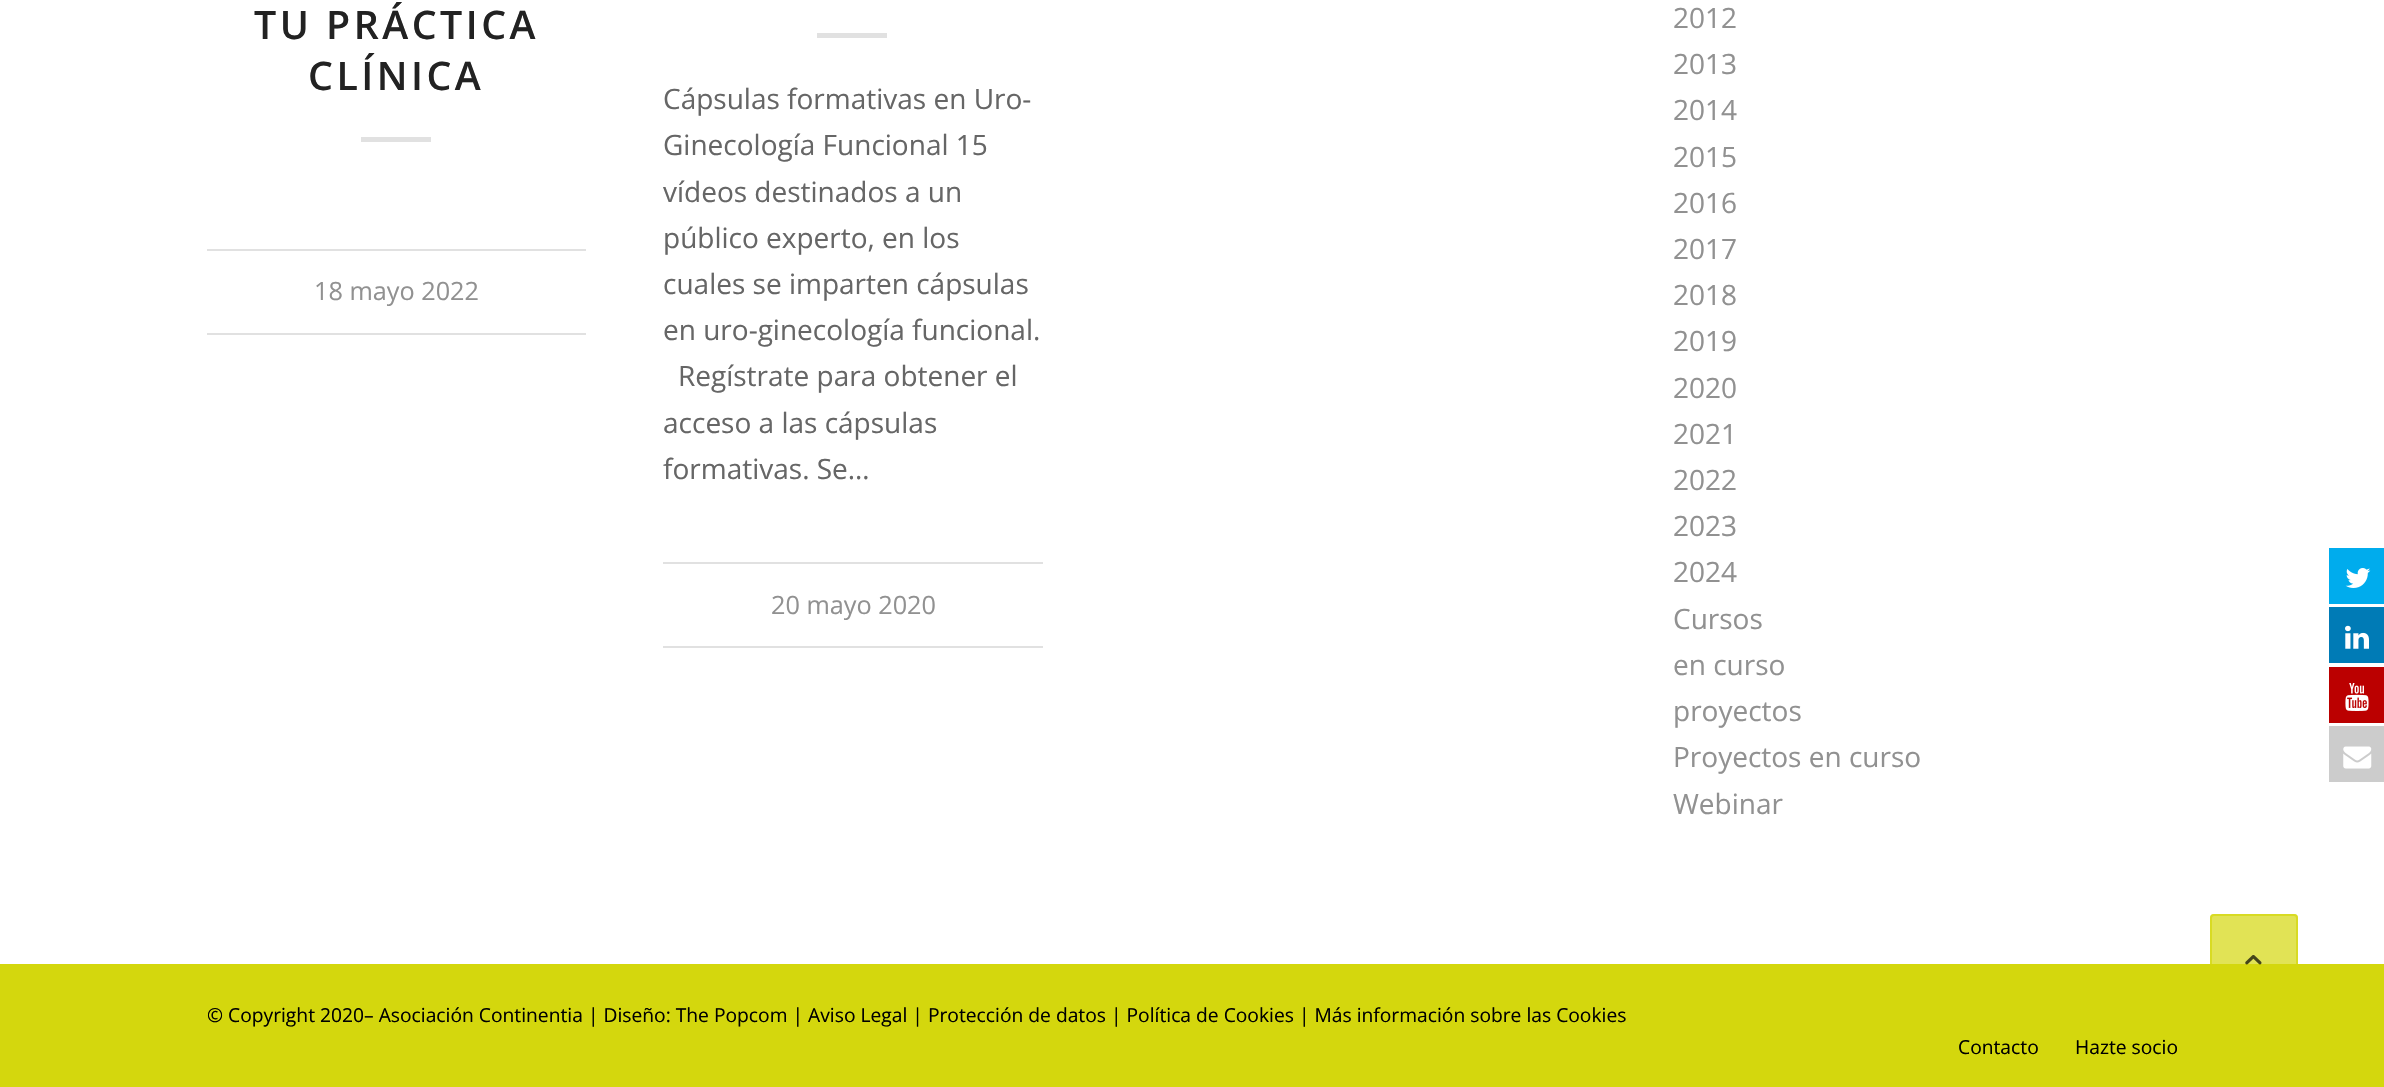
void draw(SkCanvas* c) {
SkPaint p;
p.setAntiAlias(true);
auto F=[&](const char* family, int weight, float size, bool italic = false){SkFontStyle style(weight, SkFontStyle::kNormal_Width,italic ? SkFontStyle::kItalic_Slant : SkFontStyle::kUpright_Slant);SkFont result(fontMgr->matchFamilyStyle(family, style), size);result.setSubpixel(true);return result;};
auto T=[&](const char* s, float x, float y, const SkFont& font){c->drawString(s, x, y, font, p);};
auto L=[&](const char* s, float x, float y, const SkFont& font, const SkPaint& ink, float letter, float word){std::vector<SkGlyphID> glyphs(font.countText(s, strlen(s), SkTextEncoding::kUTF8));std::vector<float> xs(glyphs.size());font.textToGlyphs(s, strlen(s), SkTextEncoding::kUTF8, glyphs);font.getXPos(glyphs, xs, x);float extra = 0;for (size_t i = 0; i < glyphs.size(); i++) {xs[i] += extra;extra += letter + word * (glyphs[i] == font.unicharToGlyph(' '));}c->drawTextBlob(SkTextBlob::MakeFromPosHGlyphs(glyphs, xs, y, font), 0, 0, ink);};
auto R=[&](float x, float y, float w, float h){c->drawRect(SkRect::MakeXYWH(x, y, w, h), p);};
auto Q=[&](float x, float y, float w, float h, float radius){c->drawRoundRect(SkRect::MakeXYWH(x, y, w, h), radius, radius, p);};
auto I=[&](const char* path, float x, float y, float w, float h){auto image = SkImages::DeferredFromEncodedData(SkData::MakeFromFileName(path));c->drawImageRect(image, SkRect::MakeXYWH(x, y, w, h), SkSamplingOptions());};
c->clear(0xffffffff);
auto f1 = F("Open Sans",600,39.25);
p.setColor(0xff222222);
L("TU PRÁCTICA",254,39,f1,p,3.5,0);
L("CLÍNICA",308,90,f1,p,3.5,0);
p.setColor(0xffe1e1e1);
R(361,137,70,5);
R(207,249,379,2);
R(207,333,379,2);
auto f2 = F("Open Sans",400,25.25);
p.setColor(0xff919191);
T("18 mayo 2022",314,300,f2);
p.setColor(0xffe1e1e1);
R(817,33,70,5);
auto f3 = F("Open Sans",400,28);
p.setColor(0xff666666);
T("Cápsulas formativas en Uro-",663,109,f3);
T("Ginecología Funcional 15",663,155,f3);
T("vídeos destinados a un",663,202,f3);
T("público experto, en los",663,248,f3);
T("cuales se imparten cápsulas",663,294,f3);
T("en uro-ginecología funcional.",663,340,f3);
T("Regístrate para obtener el",678,386,f3);
T("acceso a las cápsulas",663,433,f3);
T("formativas. Se…",663,479,f3);
p.setColor(0xffe1e1e1);
R(663,562,380,2);
R(663,646,380,2);
p.setColor(0xff919191);
T("20 mayo 2020",771,614,f2);
T("2012",1673,28,f3);
T("2013",1673,74,f3);
T("2014",1673,120,f3);
T("2015",1673,167,f3);
T("2016",1673,213,f3);
T("2017",1673,259,f3);
T("2018",1673,305,f3);
T("2019",1673,351,f3);
T("2020",1673,398,f3);
T("2021",1673,444,f3);
T("2022",1673,490,f3);
T("2023",1673,536,f3);
T("2024",1673,582,f3);
T("Cursos",1673,629,f3);
T("en curso",1673,675,f3);
T("proyectos",1673,721,f3);
T("Proyectos en curso",1673,767,f3);
T("Webinar",1673,814,f3);
p.setColor(0xffd4d70d);
R(0,964,2384,123);
auto f4 = F("Open Sans",400,19.25);
p.setColor(0xff000000);
T("© Copyright 2020– Asociación Continentia | Diseño: The Popcom | Aviso Legal | Protección de datos | Política de Cookies | Más información sobre las Cookies",207,1022,f4);
T("Contacto",1958,1054,f4);
T("Hazte socio",2075,1054,f4);
p.setColor(0xff00aced);
R(2329,548,55,56);
I("1.png",2345,568,26,20);
p.setColor(0xff007bb6);
R(2329,607,55,56);
I("2.png",2345,625,24,24);
p.setColor(0xffbb0000);
R(2329,667,55,56);
I("3.png",2345,683,24,28);
p.setColor(0xffcccccc);
R(2329,726,55,56);
I("4.png",2343,746,29,23);
p.setColor(0xb3d4d70d);
Q(2210,914,88,87,4);
p.setStroke(true);
p.setStrokeWidth(2);
c->drawRoundRect(SkRect::MakeXYWH(2211,915,86,85),3,3,p);
I("5.png",2245,955,17,10);
}
